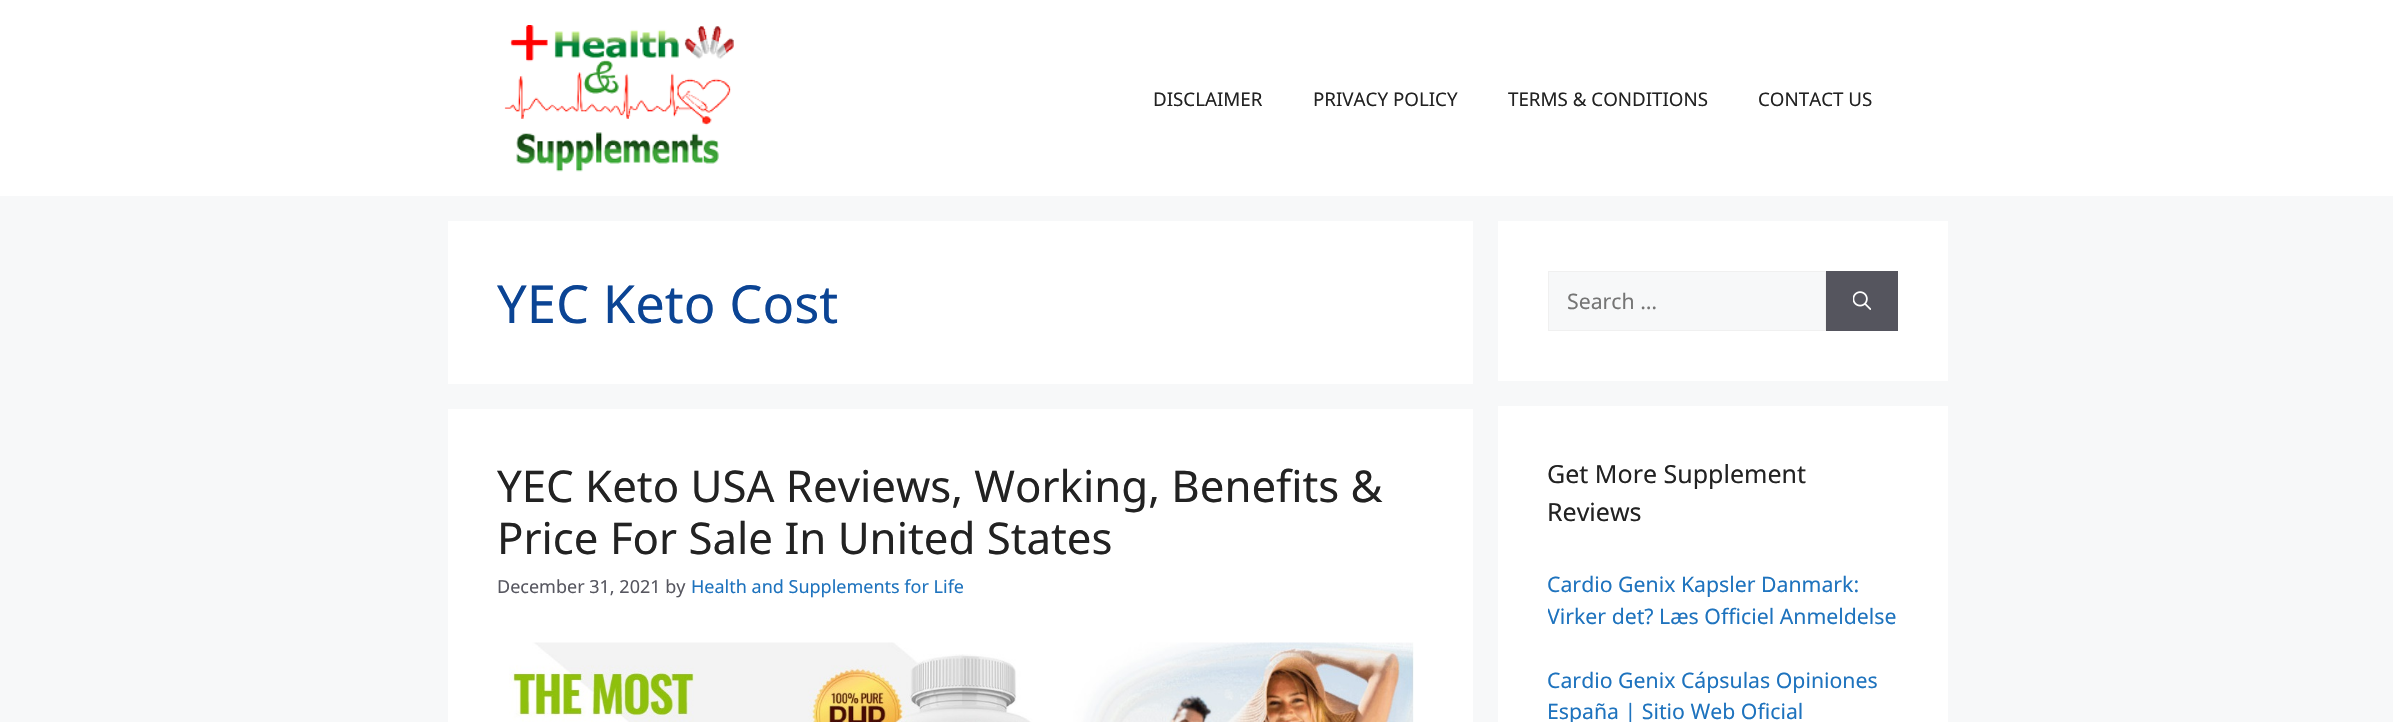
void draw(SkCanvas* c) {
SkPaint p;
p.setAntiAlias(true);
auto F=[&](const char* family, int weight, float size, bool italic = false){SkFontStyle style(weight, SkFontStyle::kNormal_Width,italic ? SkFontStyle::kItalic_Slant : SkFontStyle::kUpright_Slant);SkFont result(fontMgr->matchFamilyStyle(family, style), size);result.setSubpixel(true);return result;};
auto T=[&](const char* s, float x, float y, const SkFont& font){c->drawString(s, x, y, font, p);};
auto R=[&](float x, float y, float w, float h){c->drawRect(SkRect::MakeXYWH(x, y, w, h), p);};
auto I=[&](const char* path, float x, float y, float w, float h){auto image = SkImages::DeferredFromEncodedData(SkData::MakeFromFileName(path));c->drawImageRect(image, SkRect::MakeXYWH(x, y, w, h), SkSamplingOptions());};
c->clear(0xfff7f8f9);
p.setColor(0xffffffff);
R(0,0,2393,196);
I("1.png",504,25,230,147);
auto f1 = F("Noto Sans",400,18.75);
p.setColor(0xff222222);
T("DISCLAIMER",1153,106,f1);
T("PRIVACY POLICY",1313,106,f1);
T("TERMS & CONDITIONS",1508,106,f1);
T("CONTACT US",1758,106,f1);
p.setColor(0xffffffff);
R(448,221,1025,163);
auto f2 = F("Noto Sans",400,52.5);
p.setColor(0xff0b4494);
T("YEC Keto Cost",497,323,f2);
p.setColor(0xffffffff);
R(448,409,1025,313);
auto f3 = F("Noto Sans",400,43.75);
p.setColor(0xff222222);
T("YEC Keto USA Reviews, Working, Benefits &",497,502,f3);
T("Price For Sale In United States",497,554,f3);
auto f4 = F("Noto Sans",400,18);
p.setColor(0xff575760);
T("December 31, 2021 by",497,593,f4);
p.setColor(0xff1e73be);
T("Health and Supplements for Life",691,593,f4);
I("2.png",509,642,905,80);
p.setColor(0xffffffff);
R(1498,221,450,160);
p.setColor(0xfff7f8f9);
c->drawRect(SkRect::MakeXYWH(1548.5,271.5,277,59),p);
p.setStroke(true);
p.setStrokeWidth(1);
p.setColor(0xfff0f0f0);
c->drawRect(SkRect::MakeXYWH(1548.5,271.5,277,59),p);
auto f5 = F("Noto Sans",400,21.25);
p.setStroke(false);
p.setColor(0xff757575);
T("Search …",1567,309,f5);
p.setColor(0xff55555e);
R(1826,271,72,60);
I("3.png",1853,291,18,19);
p.setColor(0xffffffff);
R(1498,406,450,316);
auto f6 = F("Noto Sans",400,25);
p.setColor(0xff222222);
T("Get More Supplement",1547,483,f6);
T("Reviews",1547,521,f6);
p.setColor(0xff1e73be);
T("Cardio Genix Kapsler Danmark:",1547,592,f5);
c->save();
c->clipRect(SkRect::MakeXYWH(1548,569,350,64));
T("Virker det? Læs Officiel Anmeldelse",1547,624,f5);
c->restore();
T("Cardio Genix Cápsulas Opiniones",1547,688,f5);
T("España | Sitio Web Oficial",1547,719,f5);
}
